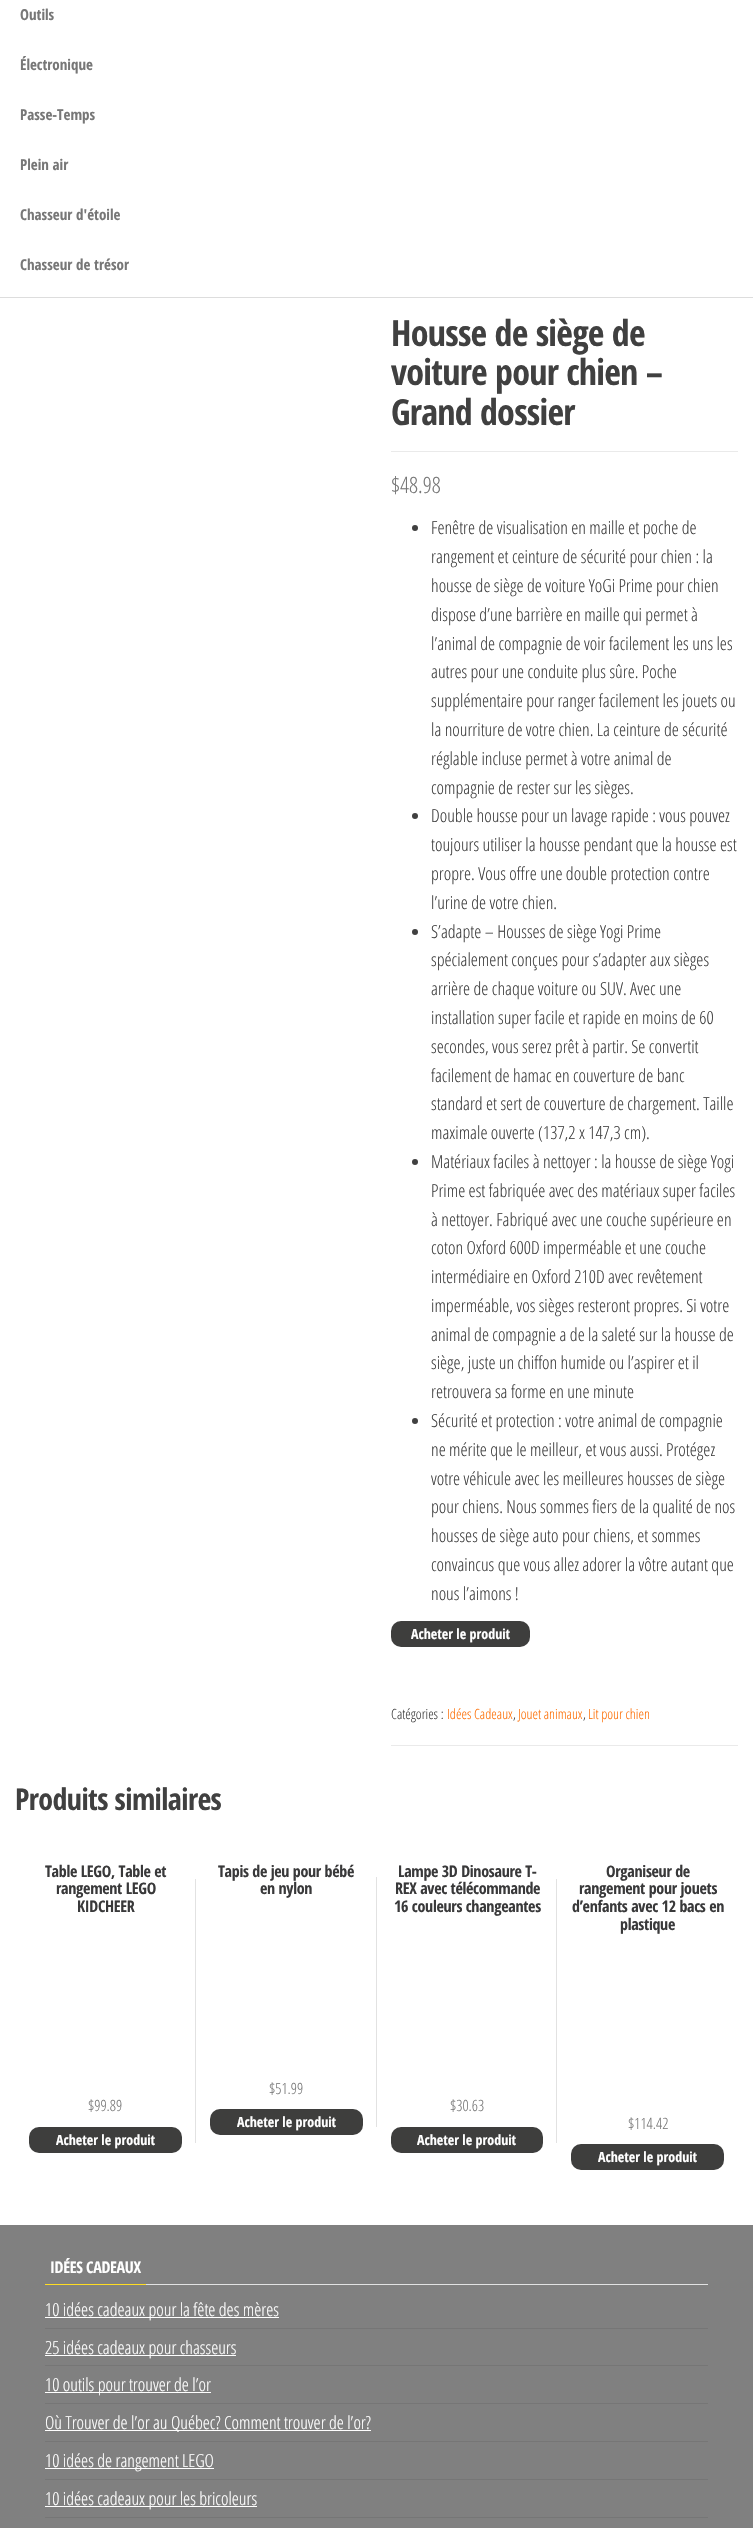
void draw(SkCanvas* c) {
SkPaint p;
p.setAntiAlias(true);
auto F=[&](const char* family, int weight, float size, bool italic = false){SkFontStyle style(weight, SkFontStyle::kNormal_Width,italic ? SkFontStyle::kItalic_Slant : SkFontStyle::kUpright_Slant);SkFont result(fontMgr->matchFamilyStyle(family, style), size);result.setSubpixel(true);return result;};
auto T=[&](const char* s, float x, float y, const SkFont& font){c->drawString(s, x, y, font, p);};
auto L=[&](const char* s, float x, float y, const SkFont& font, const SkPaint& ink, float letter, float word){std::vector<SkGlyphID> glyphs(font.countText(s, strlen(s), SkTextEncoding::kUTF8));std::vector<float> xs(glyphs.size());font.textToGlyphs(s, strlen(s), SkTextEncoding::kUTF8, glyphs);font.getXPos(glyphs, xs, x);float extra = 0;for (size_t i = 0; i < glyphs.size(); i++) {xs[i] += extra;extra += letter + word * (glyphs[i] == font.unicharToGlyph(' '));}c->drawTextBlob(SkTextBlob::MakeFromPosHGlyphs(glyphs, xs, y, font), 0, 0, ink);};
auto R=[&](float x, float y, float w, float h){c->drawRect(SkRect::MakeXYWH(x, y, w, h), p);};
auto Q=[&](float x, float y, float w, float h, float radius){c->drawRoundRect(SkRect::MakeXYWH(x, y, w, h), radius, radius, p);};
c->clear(0xffffffff);
p.setColor(0xffdddddd);
R(0,297,753,1);
auto f1 = F("Open Sans Condensed",700,15);
p.setColor(0xff777777);
T("Outils",20,20,f1);
T("Électronique",20,70,f1);
T("Passe-Temps",20,120,f1);
T("Plein air",20,170,f1);
T("Chasseur d'étoile",20,220,f1);
T("Chasseur de trésor",20,270,f1);
p.setColor(0xffeaeaea);
R(391,451,347,1);
auto f2 = F("Open Sans Condensed",700,36);
p.setColor(0xff404040);
L("Housse de siège de",391,346,f2,p,-.75,0);
L("voiture pour chien –",391,385,f2,p,-.75,0);
L("Grand dossier",391,425,f2,p,-.75,0);
auto f3 = F("Open Sans Condensed",300,22.5);
p.setColor(0xff777777);
T("$48.98",391,493,f3);
p.setColor(0xff404040);
c->drawCircle(415,528,3,p);
auto f4 = F("Open Sans Condensed",300,18);
T("Fenêtre de visualisation en maille et poche de",431,534,f4);
T("rangement et ceinture de sécurité pour chien : la",431,563,f4);
T("housse de siège de voiture YoGi Prime pour chien",431,592,f4);
T("dispose d’une barrière en maille qui permet à",431,621,f4);
T("l’animal de compagnie de voir facilement les uns les",431,650,f4);
T("autres pour une conduite plus sûre. Poche",431,678,f4);
T("supplémentaire pour ranger facilement les jouets ou",431,707,f4);
T("la nourriture de votre chien. La ceinture de sécurité",431,736,f4);
T("réglable incluse permet à votre animal de",431,765,f4);
T("compagnie de rester sur les sièges.",431,794,f4);
c->drawCircle(415,816,3,p);
T("Double housse pour un lavage rapide : vous pouvez",431,822,f4);
T("toujours utiliser la housse pendant que la housse est",431,851,f4);
T("propre. Vous offre une double protection contre",431,880,f4);
T("l’urine de votre chien.",431,909,f4);
c->drawCircle(415,932,3,p);
T("S’adapte – Housses de siège Yogi Prime",431,938,f4);
T("spécialement conçues pour s’adapter aux sièges",431,966,f4);
T("arrière de chaque voiture ou SUV. Avec une",431,995,f4);
T("installation super facile et rapide en moins de 60",431,1024,f4);
T("secondes, vous serez prêt à partir. Se convertit",431,1053,f4);
T("facilement de hamac en couverture de banc",431,1082,f4);
T("standard et sert de couverture de chargement. Taille",431,1110,f4);
T("maximale ouverte (137,2 x 147,3 cm).",431,1139,f4);
c->drawCircle(415,1162,3,p);
T("Matériaux faciles à nettoyer : la housse de siège Yogi",431,1168,f4);
T("Prime est fabriquée avec des matériaux super faciles",431,1197,f4);
T("à nettoyer. Fabriqué avec une couche supérieure en",431,1226,f4);
T("coton Oxford 600D imperméable et une couche",431,1254,f4);
T("intermédiaire en Oxford 210D avec revêtement",431,1283,f4);
T("imperméable, vos sièges resteront propres. Si votre",431,1312,f4);
T("animal de compagnie a de la saleté sur la housse de",431,1341,f4);
T("siège, juste un chiffon humide ou l’aspirer et il",431,1369,f4);
T("retrouvera sa forme en une minute",431,1398,f4);
c->drawCircle(415,1421,3,p);
T("Sécurité et protection : votre animal de compagnie",431,1427,f4);
T("ne mérite que le meilleur, et vous aussi. Protégez",431,1456,f4);
T("votre véhicule avec les meilleures housses de siège",431,1485,f4);
T("pour chiens. Nous sommes fiers de la qualité de nos",431,1513,f4);
T("housses de siège auto pour chiens, et sommes",431,1542,f4);
T("convaincus que vous allez adorer la vôtre autant que",431,1571,f4);
T("nous l’aimons !",431,1600,f4);
p.setColor(0xff3e3e3d);
Q(391,1621,139,26,10);
auto f5 = F("Open Sans Condensed",700,14);
p.setColor(0xffffffff);
T("Acheter le produit",411,1639,f5);
p.setColor(0xffeaeaea);
R(391,1745,347,1);
auto f6 = F("Open Sans Condensed",300,14);
p.setColor(0xff404040);
T("Catégories :",391,1719,f6);
p.setColor(0xfffd6f06);
T("Idées Cadeaux",447,1719,f6);
p.setColor(0xff404040);
T(",",513,1719,f6);
p.setColor(0xfffd6f06);
T("Jouet animaux",518,1719,f6);
p.setColor(0xff404040);
T(",",583,1719,f6);
p.setColor(0xfffd6f06);
T("Lit pour chien",588,1719,f6);
auto f7 = F("Open Sans Condensed",700,30);
p.setColor(0xff404040);
L("Produits similaires",15,1810,f7,p,-.6,0);
auto f8 = F("Open Sans Condensed",700,16);
p.setColor(0xff39393a);
L("Table LEGO, Table et",45,1877,f8,p,-.3,0);
L("rangement LEGO",56,1894,f8,p,-.3,0);
L("KIDCHEER",77,1912,f8,p,-.3,0);
auto f9 = F("Open Sans Condensed",300,15.5);
p.setColor(0xff777777);
T("$99.89",88,2111,f9);
p.setColor(0xffe2e2e2);
R(195,1879,1,264);
p.setColor(0xff3e3e3d);
Q(29,2127,153,26,10);
p.setColor(0xffffffff);
T("Acheter le produit",56,2145,f5);
p.setColor(0xff39393a);
L("Tapis de jeu pour bébé",218,1877,f8,p,-.3,0);
L("en nylon",260,1894,f8,p,-.3,0);
p.setColor(0xff777777);
T("$51.99",269,2094,f9);
p.setColor(0xffe2e2e2);
R(376,1877,1,250);
p.setColor(0xff3e3e3d);
Q(210,2109,153,26,10);
p.setColor(0xffffffff);
T("Acheter le produit",237,2127,f5);
p.setColor(0xff39393a);
L("Lampe 3D Dinosaure T-",398,1877,f8,p,-.3,0);
L("REX avec télécommande",395,1894,f8,p,-.3,0);
L("16 couleurs changeantes",394,1912,f8,p,-.3,0);
p.setColor(0xff777777);
T("$30.63",450,2111,f9);
p.setColor(0xffe2e2e2);
R(556,1879,1,264);
p.setColor(0xff3e3e3d);
Q(391,2127,152,26,10);
p.setColor(0xffffffff);
T("Acheter le produit",417,2145,f5);
p.setColor(0xff39393a);
L("Organiseur de",606,1877,f8,p,-.3,0);
L("rangement pour jouets",579,1894,f8,p,-.3,0);
L("d’enfants avec 12 bacs en",572,1912,f8,p,-.3,0);
L("plastique",620,1930,f8,p,-.3,0);
p.setColor(0xff777777);
T("$114.42",628,2129,f9);
p.setColor(0xff3e3e3d);
Q(571,2144,153,26,10);
p.setColor(0xffffffff);
T("Acheter le produit",598,2162,f5);
p.setColor(0xff808080);
R(0,2225,753,303);
p.setColor(0xffe2e2e2);
R(146,2284,562,1);
p.setColor(0xffffffff);
L("IDÉES CADEAUX",50,2273,f8,p,-.3,0);
p.setColor(0xffffdd22);
R(45,2284,101,1);
p.setColor(0xff767676);
R(45,2328,663,1);
p.setColor(0xffffffff);
R(45,2317,234,1);
T("10 idées cadeaux pour la fête des mères",45,2316,f4);
p.setColor(0xff767676);
R(45,2365,663,1);
p.setColor(0xffffffff);
R(45,2355,191,1);
T("25 idées cadeaux pour chasseurs",45,2354,f4);
p.setColor(0xff767676);
R(45,2403,663,1);
p.setColor(0xffffffff);
R(45,2392,166,1);
T("10 outils pour trouver de l’or",45,2391,f4);
p.setColor(0xff767676);
R(45,2441,663,1);
p.setColor(0xffffffff);
R(45,2430,326,1);
T("Où Trouver de l’or au Québec? Comment trouver de l’or?",45,2429,f4);
p.setColor(0xff767676);
R(45,2479,663,1);
p.setColor(0xffffffff);
R(45,2468,169,1);
T("10 idées de rangement LEGO",45,2467,f4);
p.setColor(0xff767676);
R(45,2517,663,1);
p.setColor(0xffffffff);
R(45,2506,212,1);
T("10 idées cadeaux pour les bricoleurs",45,2505,f4);
}
